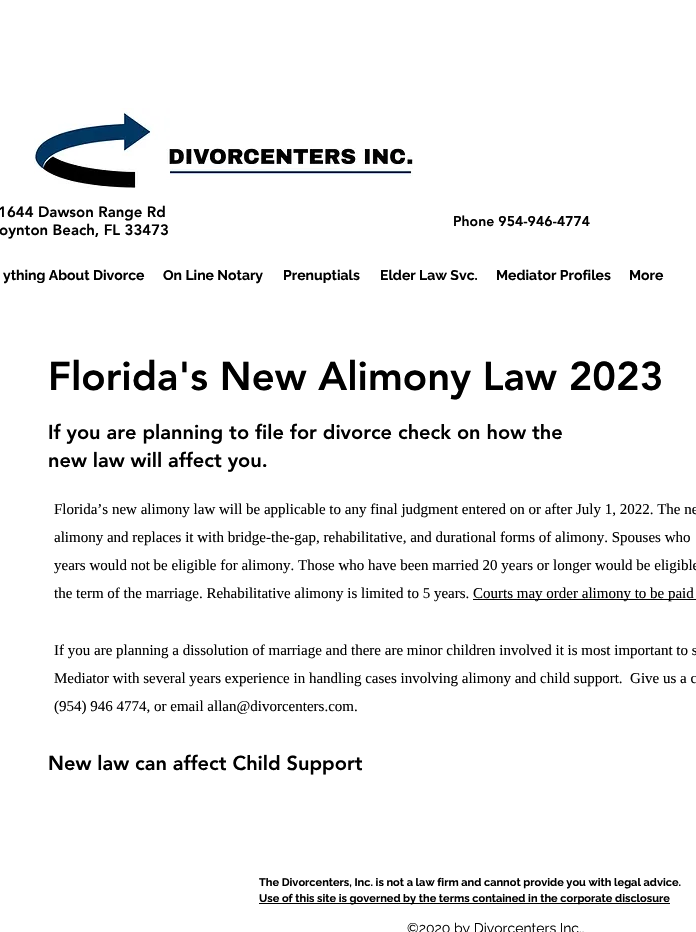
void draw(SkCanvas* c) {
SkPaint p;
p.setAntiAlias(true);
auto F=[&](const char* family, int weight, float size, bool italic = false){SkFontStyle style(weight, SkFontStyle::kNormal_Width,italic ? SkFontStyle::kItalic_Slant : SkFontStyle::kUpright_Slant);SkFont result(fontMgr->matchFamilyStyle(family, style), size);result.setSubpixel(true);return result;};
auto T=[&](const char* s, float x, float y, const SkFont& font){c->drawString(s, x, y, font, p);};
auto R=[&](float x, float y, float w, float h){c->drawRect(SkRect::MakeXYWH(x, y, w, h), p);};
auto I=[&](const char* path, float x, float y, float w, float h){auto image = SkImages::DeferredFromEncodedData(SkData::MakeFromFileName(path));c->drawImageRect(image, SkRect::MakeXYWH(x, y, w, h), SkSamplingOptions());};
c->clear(0xffffffff);
I("1.png",34,108,379,80);
auto f1 = F("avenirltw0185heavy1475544",900,15);
p.setColor(0xff000000);
T("1644 Dawson Range Rd",-2,217,f1);
T("oynton Beach, FL 33473",-1,235,f1);
auto f2 = F("avenirltw0185heavy1475544",900,14);
T("Phone 954-946-4774",453,226,f2);
auto f3 = F("Raleway",700,14);
T("ything About Divorce",3,280,f3);
T("On Line Notary",163,280,f3);
T("Prenuptials",283,280,f3);
T("Elder Law Svc.",380,280,f3);
T("Mediator Profiles",496,280,f3);
T("More",629,280,f3);
auto f4 = F("avenirltw0185heavy1475544",900,40);
T("Florida's New Alimony Law 2023",48,390,f4);
auto f5 = F("avenirltw0185heavy1475544",900,20);
T("If you are planning to file for divorce check on how the",48,439,f5);
T("new law will affect you.",48,467,f5);
auto f6 = F("Liberation Serif",400,15);
T("Florida’s new alimony law will be applicable to any final judgment entered on or after July 1, 2022. The ne",54,514,f6);
T("alimony and replaces it with bridge-the-gap, rehabilitative, and durational forms of alimony. Spouses who",54,542,f6);
T("years would not be eligible for alimony. Those who have been married 20 years or longer would be eligible",54,570,f6);
T("the term of the marriage. Rehabilitative alimony is limited to 5 years.",54,598,f6);
R(473,599,223,1);
T("Courts may order alimony to be paid",473,598,f6);
T("If you are planning a dissolution of marriage and there are minor children involved it is most important to s",54,655,f6);
T("Mediator with several years experience in handling cases involving alimony and child support.  Give us a c",54,683,f6);
T("(954) 946 4774, or email allan@divorcenters.com.",54,711,f6);
T("New law can affect Child Support",48,770,f5);
auto f7 = F("Raleway",700,11);
T("The Divorcenters, Inc. is not a law firm and cannot provide you with legal advice.",259,886,f7);
R(259,903,411,1);
T("Use of this site is governed by the terms contained in the corporate disclosure",259,902,f7);
auto f8 = F("Raleway",400,14);
T("©2020 by Divorcenters Inc..",407,933,f8);
}
